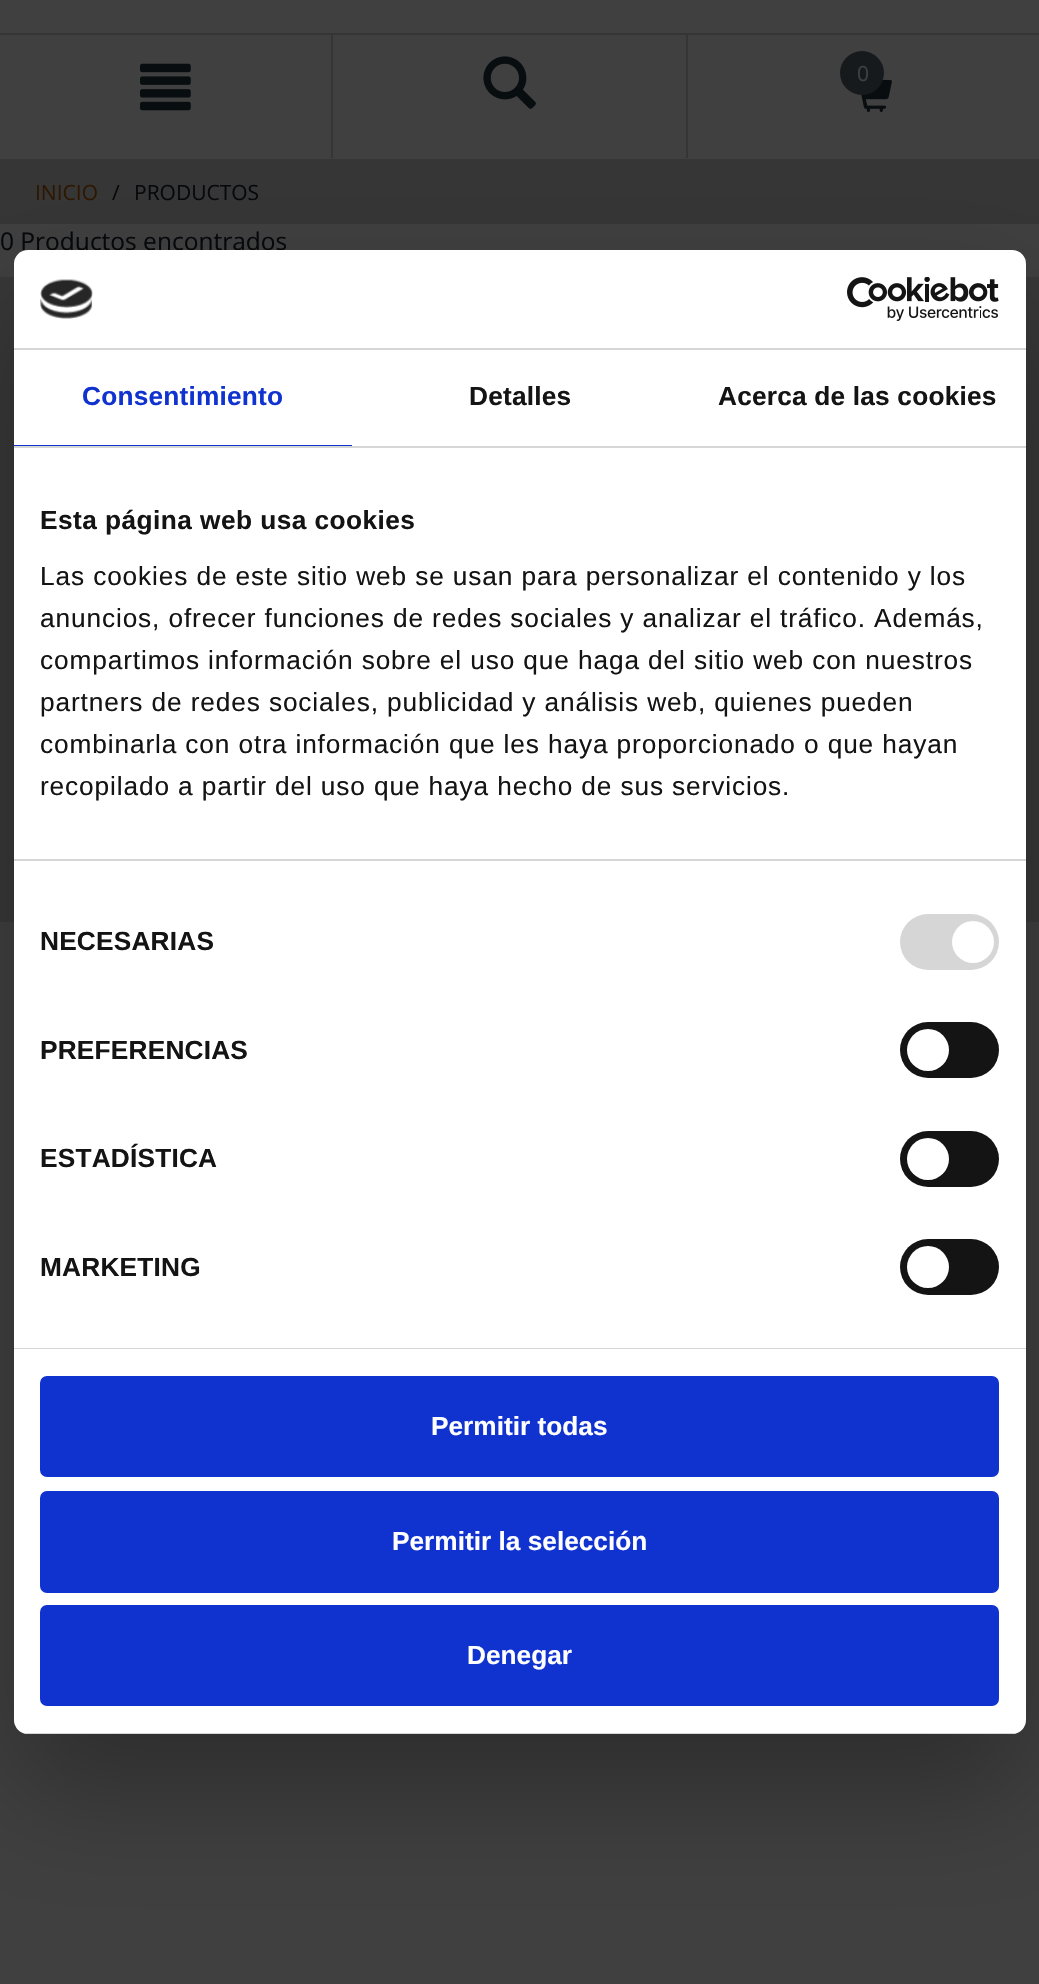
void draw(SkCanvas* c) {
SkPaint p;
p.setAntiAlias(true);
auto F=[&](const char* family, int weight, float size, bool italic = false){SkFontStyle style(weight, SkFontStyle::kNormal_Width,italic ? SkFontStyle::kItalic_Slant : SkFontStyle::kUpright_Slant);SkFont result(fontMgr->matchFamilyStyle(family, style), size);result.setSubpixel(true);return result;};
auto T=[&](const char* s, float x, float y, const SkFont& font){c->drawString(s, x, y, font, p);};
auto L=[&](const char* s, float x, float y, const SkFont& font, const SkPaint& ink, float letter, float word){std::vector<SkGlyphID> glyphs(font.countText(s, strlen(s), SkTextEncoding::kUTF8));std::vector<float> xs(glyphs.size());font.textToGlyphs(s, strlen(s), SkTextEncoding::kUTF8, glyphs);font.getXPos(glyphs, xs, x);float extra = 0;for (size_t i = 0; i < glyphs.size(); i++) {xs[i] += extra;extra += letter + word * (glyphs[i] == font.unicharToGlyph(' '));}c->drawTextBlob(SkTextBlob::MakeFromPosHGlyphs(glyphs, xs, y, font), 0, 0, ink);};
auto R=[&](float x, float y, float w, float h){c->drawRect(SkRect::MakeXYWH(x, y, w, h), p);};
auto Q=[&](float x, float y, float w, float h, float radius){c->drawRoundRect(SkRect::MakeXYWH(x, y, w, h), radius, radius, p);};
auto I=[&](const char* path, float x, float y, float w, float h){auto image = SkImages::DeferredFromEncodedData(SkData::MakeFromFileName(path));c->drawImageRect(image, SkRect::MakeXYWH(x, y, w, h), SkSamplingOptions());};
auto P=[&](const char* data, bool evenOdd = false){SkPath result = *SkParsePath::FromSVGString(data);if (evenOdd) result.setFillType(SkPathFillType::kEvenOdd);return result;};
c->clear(0xff404040);
p.setColor(0xff353535);
R(0,33,1039,2);
I("1.png",140,63,51,48);
R(331,35,2,123);
I("2.png",483,56,53,53);
R(686,35,2,123);
I("3.png",861,79,31,33);
p.setColor(0xff161a1d);
c->drawCircle(862,73,22,p);
auto f1 = F("Open Sans",400,21);
p.setColor(0xff404040);
T("0",857,81,f1);
p.setColor(0xff363636);
R(0,159,1039,65);
p.setColor(0xff2d1700);
T("INICIO",35,200,f1);
p.setColor(0xff06080b);
T("/",112,200,f1);
T("PRODUCTOS",134,200,f1);
auto f2 = F("Open Sans",400,24.5);
T("0 Productos encontrados",0,250,f2);
p.setColor(0xff383838);
R(0,277,1039,645);
p.setColor(0x4d000000);
p.setMaskFilter(SkMaskFilter::MakeBlur(kNormal_SkBlurStyle, 59.5));
c->drawRoundRect(SkRect::MakeXYWH(14,306,1012,1484),14,14,p);
p.setMaskFilter(nullptr);
p.setColor(0xffffffff);
Q(14,250,1012,1484,14);
p.setColor(0xffd6d6d6);
R(14,348,1012,2);
I("4.png",40,279,53,40);
I("5.png",847,277,152,44);
R(14,446,1012,2);
p.setColor(0xff1032cf);
R(14,445,338,1);
auto f3 = F("Liberation Sans",700,26.25);
L("Consentimiento",82,405,f3,p,.2,0);
p.setColor(0xff141414);
L("Detalles",469,405,f3,p,.2,0);
L("Acerca de las cookies",718,405,f3,p,.2,0);
p.setColor(0xffd6d6d6);
R(14,859,1012,2);
p.setColor(0xff141414);
L("Esta página web usa cookies",40,529,f3,p,.45,0);
auto f4 = F("Liberation Sans",400,26.25);
L("Las cookies de este sitio web se usan para personalizar el contenido y los",40,585,f4,p,.88,0);
L("anuncios, ofrecer funciones de redes sociales y analizar el tráfico. Además,",40,627,f4,p,.88,0);
L("compartimos información sobre el uso que haga del sitio web con nuestros",40,669,f4,p,.88,0);
L("partners de redes sociales, publicidad y análisis web, quienes pueden",40,711,f4,p,.88,0);
L("combinarla con otra información que les haya proporcionado o que hayan",40,753,f4,p,.88,0);
L("recopilado a partir del uso que haya hecho de sus servicios.",40,795,f4,p,.88,0);
p.setColor(0xffd6d6d6);
R(14,1348,1012,1);
p.setColor(0xff141414);
L("NECESARIAS",40,950,f3,p,.2,0);
p.setColor(0xffd6d6d6);
Q(900,914,99,56,28);
p.setColor(0xffffffff);
c->drawCircle(973,942,21,p);
p.setColor(0xff141414);
L("PREFERENCIAS",40,1059,f3,p,.2,0);
Q(900,1022,99,56,28);
p.setColor(0xffffffff);
c->drawCircle(928,1050,21,p);
p.setColor(0xff141414);
L("ESTADÍSTICA",40,1167,f3,p,.2,0);
Q(900,1131,99,56,28);
p.setColor(0xffffffff);
c->drawCircle(928,1159,21,p);
p.setColor(0xff141414);
L("MARKETING",40,1276,f3,p,.2,0);
Q(900,1239,99,56,28);
p.setColor(0xffffffff);
c->drawCircle(928,1267,21,p);
c->save();
c->clipPath(P("M28 250h984c7.5 0 14 6.5 14 14v1456c0 7.5-6.5 14-14 14h-984c-7.5 0-14-6.5-14-14v-1456c0-7.5 6.5-14 14-14z"),true);
p.setColor(0xffd6d6d6);
R(23,1733,994,1);
c->restore();
p.setColor(0xff1032cf);
c->drawRoundRect(SkRect::MakeXYWH(42,1378,955,97),5,5,p);
p.setStroke(true);
p.setStrokeWidth(4);
c->drawRoundRect(SkRect::MakeXYWH(42,1378,955,97),5,5,p);
p.setStroke(false);
p.setColor(0xffffffff);
T("Permitir todas",431,1435,f3);
p.setColor(0xff1032cf);
c->drawRoundRect(SkRect::MakeXYWH(42,1493,955,98),5,5,p);
p.setStroke(true);
c->drawRoundRect(SkRect::MakeXYWH(42,1493,955,98),5,5,p);
p.setStroke(false);
p.setColor(0xffffffff);
T("Permitir la selección",392,1550,f3);
p.setColor(0xff1032cf);
c->drawRoundRect(SkRect::MakeXYWH(42,1607,955,97),5,5,p);
p.setStroke(true);
c->drawRoundRect(SkRect::MakeXYWH(42,1607,955,97),5,5,p);
p.setStroke(false);
p.setColor(0xffffffff);
T("Denegar",467,1664,f3);
}
